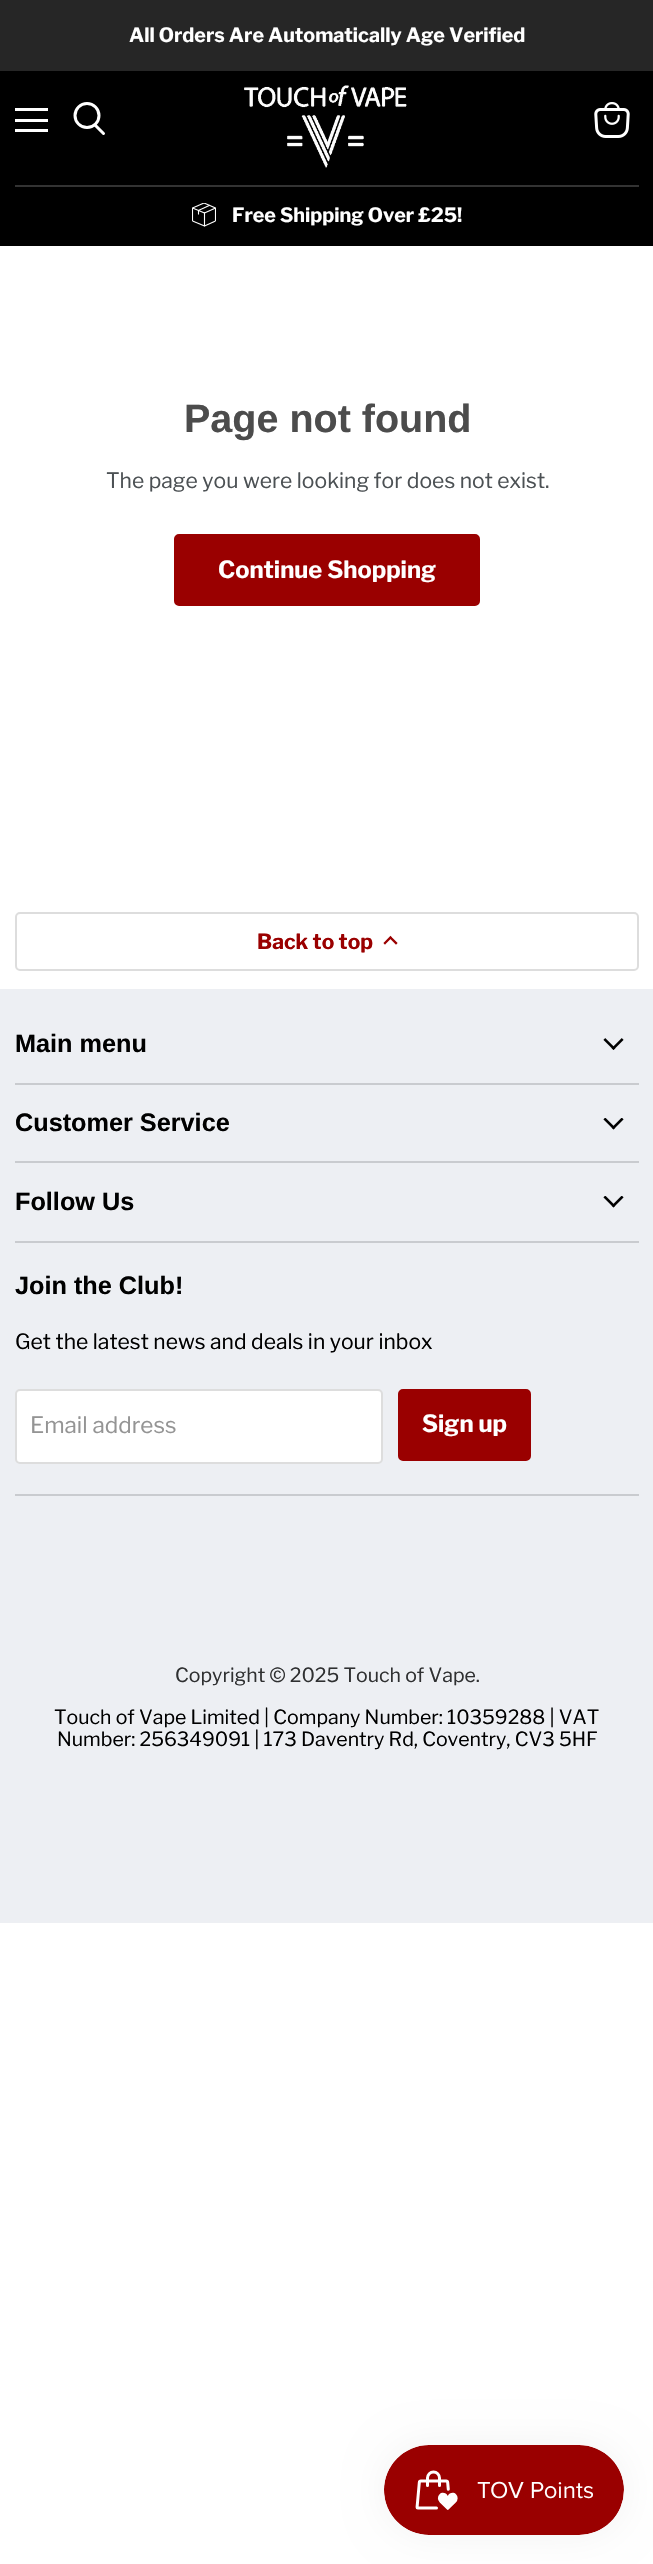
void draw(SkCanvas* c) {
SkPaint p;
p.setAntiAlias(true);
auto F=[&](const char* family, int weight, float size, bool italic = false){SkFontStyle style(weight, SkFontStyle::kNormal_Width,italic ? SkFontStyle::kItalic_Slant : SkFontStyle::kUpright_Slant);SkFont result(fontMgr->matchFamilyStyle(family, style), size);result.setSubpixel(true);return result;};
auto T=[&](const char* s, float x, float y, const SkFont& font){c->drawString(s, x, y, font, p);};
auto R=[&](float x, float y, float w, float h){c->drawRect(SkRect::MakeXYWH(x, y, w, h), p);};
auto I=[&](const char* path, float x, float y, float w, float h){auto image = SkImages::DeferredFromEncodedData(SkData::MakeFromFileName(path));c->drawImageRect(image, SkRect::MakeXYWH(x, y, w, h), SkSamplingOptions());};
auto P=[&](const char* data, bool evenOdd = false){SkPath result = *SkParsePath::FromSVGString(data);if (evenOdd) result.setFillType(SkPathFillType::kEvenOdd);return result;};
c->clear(0xffffffff);
p.setColor(0xff262626);
R(0,0,653,71);
auto f1 = F("Libre Franklin",700,19.7);
p.setColor(0xffffffff);
T("All Orders Are Automatically Age Verified",129,42,f1);
p.setColor(0xff000000);
R(0,71,653,175);
p.setColor(0xffffffff);
R(15,108,33,3);
R(15,119,33,3);
R(15,129,33,3);
p.setStroke(true);
p.setStrokeWidth(3);
p.setStrokeCap(SkPaint::kRound_Cap);
c->drawPath(P("M103.5 133.5l-8.5-8.5"),p);
p.setStrokeCap(SkPaint::kButt_Cap);
c->drawCircle(87,115.5,12,p);
I("1.png",594,102,36,36);
I("2.png",244,85,163,83);
p.setStroke(false);
p.setColor(0xff333333);
R(15,185,624,2);
I("3.png",192,203,24,24);
p.setColor(0xffffffff);
T("Free Shipping Over £25!",232,222,f1);
auto f2 = F("Arimo",700,39.5);
p.setColor(0xff4c4c4c);
T("Page not found",184,432,f2);
auto f3 = F("Libre Franklin",400,21.1);
p.setColor(0xff4c5154);
T("The page you were looking for does not exist.",106,488,f3);
p.setColor(0xff9a0000);
c->drawRoundRect(SkRect::MakeXYWH(175,535,304,70),4,4,p);
p.setStroke(true);
p.setStrokeWidth(2);
c->drawRoundRect(SkRect::MakeXYWH(175,535,304,70),4,4,p);
auto f4 = F("Libre Franklin",700,23.75);
p.setStroke(false);
p.setColor(0xffffffff);
T("Continue Shopping",218,578,f4);
p.setStroke(true);
p.setColor(0xffdddddd);
c->drawRoundRect(SkRect::MakeXYWH(16,913,622,57),4,4,p);
auto f5 = F("Libre Franklin",700,21);
p.setStroke(false);
p.setColor(0xff9a0000);
T("Back to top",257,949,f5);
p.setStroke(true);
p.setStrokeWidth(2.3);
p.setStrokeCap(SkPaint::kSquare_Cap);
c->drawPath(P("M390.5 937.5l-5.5 5.5m5.5-5.5l5.5 5.5"),p);
p.setStroke(false);
p.setColor(0xffedeff3);
R(0,989,653,934);
p.setColor(0xffc9cbcf);
R(15,1083,624,2);
auto f6 = F("Arimo",700,25.25);
p.setColor(0xff000000);
T("Main menu",15,1052,f6);
I("4.png",603,1038,21,12);
p.setColor(0xffc9cbcf);
R(15,1161,624,2);
p.setColor(0xff000000);
T("Customer Service",15,1131,f6);
I("5.png",603,1118,21,12);
p.setColor(0xffc9cbcf);
R(15,1241,624,2);
p.setColor(0xff000000);
T("Follow Us",15,1210,f6);
I("5.png",603,1196,21,12);
p.setColor(0xffc9cbcf);
R(15,1494,624,2);
p.setColor(0xff000000);
T("Join the Club!",15,1294,f6);
T("Get the latest news and deals in your inbox",15,1349,f3);
p.setColor(0xffffffff);
c->drawRoundRect(SkRect::MakeXYWH(16,1390,366,73),4,4,p);
p.setStroke(true);
p.setStrokeWidth(2);
p.setStrokeCap(SkPaint::kButt_Cap);
p.setColor(0xffdddddd);
c->drawRoundRect(SkRect::MakeXYWH(16,1390,366,73),4,4,p);
auto f7 = F("Libre Franklin",400,22.5);
p.setStroke(false);
p.setColor(0xff949494);
T("Email address",30,1433,f7);
p.setColor(0xff9a0000);
c->drawRoundRect(SkRect::MakeXYWH(399,1390,131,70),4,4,p);
p.setStroke(true);
c->drawRoundRect(SkRect::MakeXYWH(399,1390,131,70),4,4,p);
p.setStroke(false);
p.setColor(0xffffffff);
T("Sign up",422,1432,f4);
auto f8 = F("Libre Franklin",400,19.5);
p.setColor(0xff2f3031);
T("Copyright © 2025 Touch of Vape.",175,1682,f8);
p.setColor(0xff000000);
T("Touch of Vape Limited | Company Number: 10359288 | VAT",54,1724,f8);
T("Number: 256349091 | 173 Daventry Rd, Coventry, CV3 5HF",57,1746,f8);
p.setColor(0x0d000000);
p.setMaskFilter(SkMaskFilter::MakeBlur(kNormal_SkBlurStyle, 19));
c->drawRoundRect(SkRect::MakeXYWH(384,2445,240,90),45,45,p);
p.setMaskFilter(nullptr);
I("6.png",384,2445,240,90);
}
